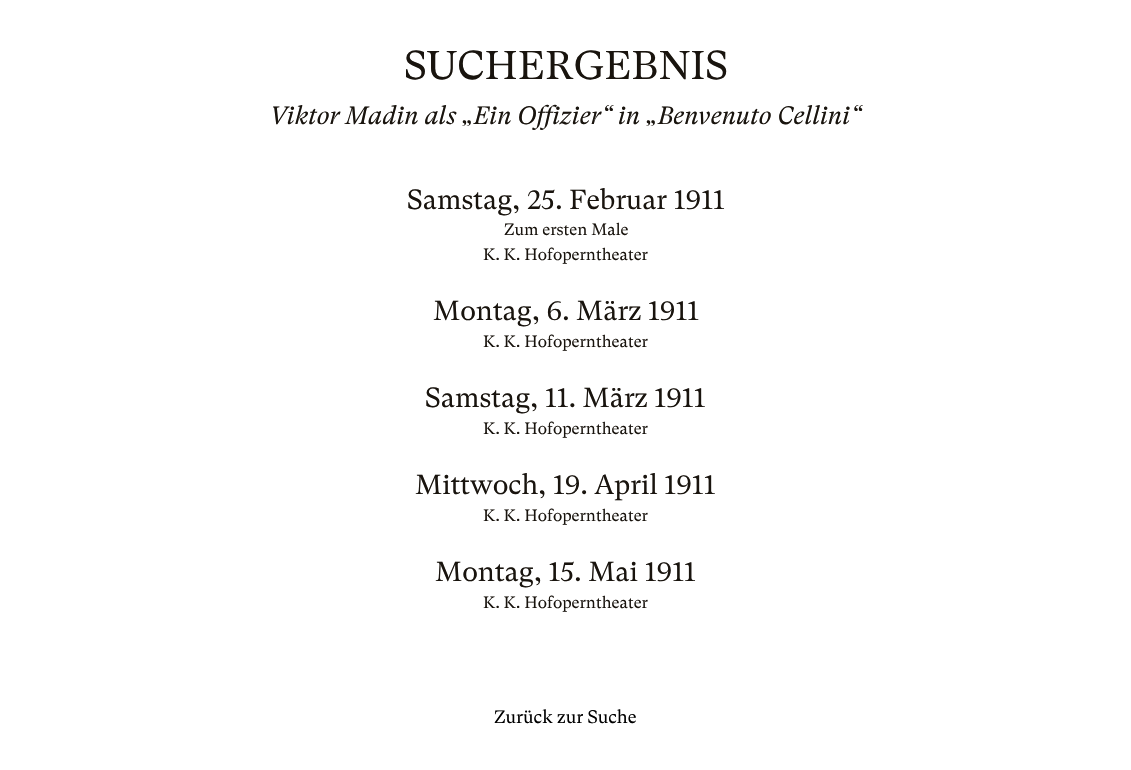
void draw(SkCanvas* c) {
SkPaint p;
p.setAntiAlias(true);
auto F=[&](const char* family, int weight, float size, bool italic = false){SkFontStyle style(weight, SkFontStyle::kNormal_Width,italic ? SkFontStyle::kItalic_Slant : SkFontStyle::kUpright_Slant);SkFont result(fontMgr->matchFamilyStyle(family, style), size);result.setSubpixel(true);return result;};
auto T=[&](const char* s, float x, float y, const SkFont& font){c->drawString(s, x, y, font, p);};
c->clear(0xffffffff);
auto f1 = F("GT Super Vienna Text",400,40);
p.setColor(0xff19140e);
T("SUCHERGEBNIS",404,79,f1);
auto f2 = F("GT Super Vienna Text",400,25,true);
T("Viktor Madin als „Ein Offizier“ in „Benvenuto Cellini“",270,124,f2);
auto f3 = F("GT Super Vienna Text",400,27.5);
T("Samstag, 25. Februar 1911",407,209,f3);
auto f4 = F("GT Super Vienna Text",400,16.25);
T("Zum ersten Male",504,235,f4);
T("K. K. Hofoperntheater",483,260,f4);
T("Montag, 6. März 1911",433,320,f3);
T("K. K. Hofoperntheater",483,347,f4);
T("Samstag, 11. März 1911",425,407,f3);
T("K. K. Hofoperntheater",483,434,f4);
T("Mittwoch, 19. April 1911",415,494,f3);
T("K. K. Hofoperntheater",483,521,f4);
T("Montag, 15. Mai 1911",435,581,f3);
T("K. K. Hofoperntheater",483,608,f4);
auto f5 = F("GT Super Vienna Text",400,18);
p.setColor(0xff000000);
T("Zurück zur Suche",494,723,f5);
}
